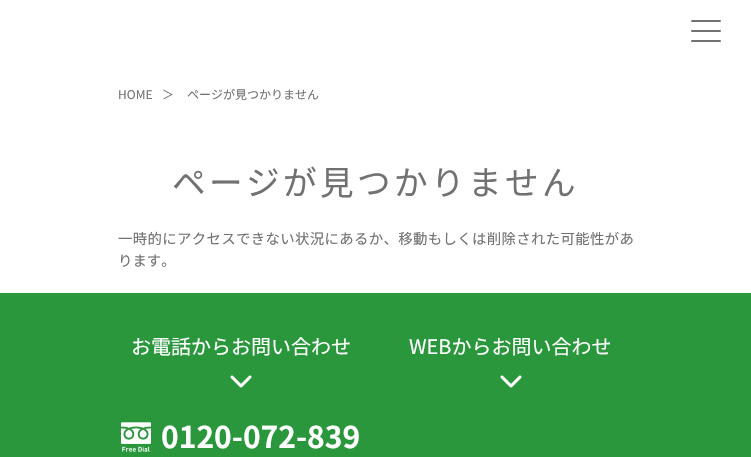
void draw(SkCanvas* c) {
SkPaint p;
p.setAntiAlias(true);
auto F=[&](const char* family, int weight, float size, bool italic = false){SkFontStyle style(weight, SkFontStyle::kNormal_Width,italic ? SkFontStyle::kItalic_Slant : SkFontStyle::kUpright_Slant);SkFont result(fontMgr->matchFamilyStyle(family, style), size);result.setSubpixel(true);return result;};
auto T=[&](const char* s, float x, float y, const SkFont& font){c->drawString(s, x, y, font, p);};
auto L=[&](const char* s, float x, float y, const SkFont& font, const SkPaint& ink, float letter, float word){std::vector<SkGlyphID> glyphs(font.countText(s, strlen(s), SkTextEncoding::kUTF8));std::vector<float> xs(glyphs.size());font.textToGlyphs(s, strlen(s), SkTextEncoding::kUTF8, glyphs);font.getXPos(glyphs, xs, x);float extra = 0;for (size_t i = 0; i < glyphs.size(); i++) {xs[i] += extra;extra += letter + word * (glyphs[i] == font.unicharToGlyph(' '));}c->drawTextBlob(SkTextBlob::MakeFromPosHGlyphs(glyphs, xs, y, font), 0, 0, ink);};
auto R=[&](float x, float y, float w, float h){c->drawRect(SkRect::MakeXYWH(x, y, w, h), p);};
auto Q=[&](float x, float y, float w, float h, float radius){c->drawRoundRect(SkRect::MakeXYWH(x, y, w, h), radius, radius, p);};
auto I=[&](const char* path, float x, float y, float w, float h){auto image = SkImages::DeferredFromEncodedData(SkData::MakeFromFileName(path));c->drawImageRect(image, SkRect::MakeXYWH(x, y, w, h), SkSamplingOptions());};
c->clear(0xffffffff);
p.setColor(0xff727171);
Q(691,20,30,2,1);
Q(691,30,30,2,1);
Q(691,40,30,2,1);
auto f1 = F("Noto Sans JP",400,12);
T("HOME",118,99,f1);
T("＞",162,99,f1);
T("ページが見つかりません",187,99,f1);
auto f2 = F("Noto Sans JP",400,33.6);
L("ページが見つかりません",172,195,f2,p,3.4,0);
auto f3 = F("Noto Sans JP",400,14.4);
L("一時的にアクセスできない状況にあるか、移動もしくは削除された可能性があ",118,244,f3,p,.35,0);
T("ります。",118,266,f3);
p.setColor(0xff2a973d);
R(0,293,751,164);
auto f4 = F("Noto Sans JP",400,20);
p.setColor(0xffffffff);
T("お電話からお問い合わせ",131,354,f4);
I("1.png",230,375,22,13);
I("2.png",121,422,30,30);
auto f5 = F("Noto Sans JP",700,30);
T("0120-072-839",161,448,f5);
T("WEBからお問い合わせ",409,354,f4);
I("1.png",500,375,22,13);
}
